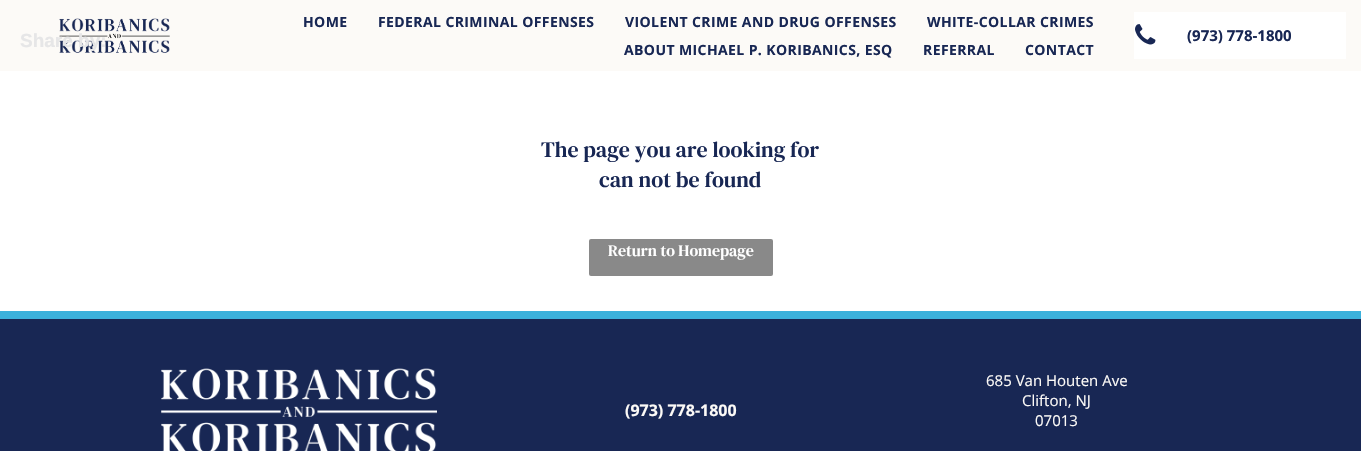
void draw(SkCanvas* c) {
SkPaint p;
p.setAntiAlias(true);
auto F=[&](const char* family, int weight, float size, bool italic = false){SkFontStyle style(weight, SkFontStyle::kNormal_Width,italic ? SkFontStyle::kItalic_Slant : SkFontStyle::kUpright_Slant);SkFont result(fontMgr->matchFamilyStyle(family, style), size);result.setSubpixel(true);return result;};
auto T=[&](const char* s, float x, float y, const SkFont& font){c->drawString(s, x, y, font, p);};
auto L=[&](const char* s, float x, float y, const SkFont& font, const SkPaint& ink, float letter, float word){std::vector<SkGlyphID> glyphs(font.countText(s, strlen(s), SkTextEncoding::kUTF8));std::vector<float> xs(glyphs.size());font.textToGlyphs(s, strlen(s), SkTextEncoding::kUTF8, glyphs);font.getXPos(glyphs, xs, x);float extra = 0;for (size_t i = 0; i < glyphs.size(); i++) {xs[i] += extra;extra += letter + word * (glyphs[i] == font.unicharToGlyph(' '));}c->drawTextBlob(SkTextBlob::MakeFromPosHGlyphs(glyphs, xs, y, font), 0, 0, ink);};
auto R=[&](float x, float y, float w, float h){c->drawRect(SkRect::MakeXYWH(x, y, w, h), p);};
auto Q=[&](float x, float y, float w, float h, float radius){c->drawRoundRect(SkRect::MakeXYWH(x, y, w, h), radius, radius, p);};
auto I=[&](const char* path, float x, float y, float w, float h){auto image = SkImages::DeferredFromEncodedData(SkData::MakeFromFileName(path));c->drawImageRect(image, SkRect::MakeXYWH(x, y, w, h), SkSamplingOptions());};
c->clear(0xffffffff);
p.setColor(0xfffcfaf7);
R(0,0,1361,71);
I("1.png",59,18,111,35);
auto f1 = F("Liberation Sans",700,19);
p.setColor(0xffe6e6e7);
T("Share by:",20,47,f1);
auto f2 = F("Open Sans",700,14);
p.setColor(0xff182754);
L("HOME",303,27,f2,p,.4,0);
L("FEDERAL CRIMINAL OFFENSES",378,27,f2,p,.4,0);
L("VIOLENT CRIME AND DRUG OFFENSES",625,27,f2,p,.4,0);
L("WHITE-COLLAR CRIMES",927,27,f2,p,.4,0);
L("ABOUT MICHAEL P. KORIBANICS, ESQ",624,55,f2,p,.4,0);
L("REFERRAL",923,55,f2,p,.4,0);
L("CONTACT",1025,55,f2,p,.4,0);
p.setColor(0xffffffff);
R(1134,12,212,47);
I("2.png",1135,24,21,21);
auto f3 = F("Open Sans",700,15);
p.setColor(0xff182754);
T("(973) 778-1800",1187,41,f3);
auto f4 = F("DM Serif Text",400,22);
T("The page you are looking for",541,157,f4);
T("can not be found",599,187,f4);
p.setColor(0xff898989);
Q(589,239,184,37,2);
auto f5 = F("DM Serif Text",400,16);
p.setColor(0xffffffff);
T("Return to Homepage",608,256,f5);
p.setColor(0xff182754);
R(0,319,1361,132);
p.setColor(0xff3bb1dc);
R(0,311,1361,8);
I("3.png",161,368,276,83);
auto f6 = F("Open Sans",700,16);
p.setColor(0xfffcfaf7);
T("(973) 778-1800",625,416,f6);
auto f7 = F("Open Sans",400,15);
T("685 Van Houten Ave",986,386,f7);
T("Clifton, NJ",1022,406,f7);
T("07013",1035,426,f7);
}
